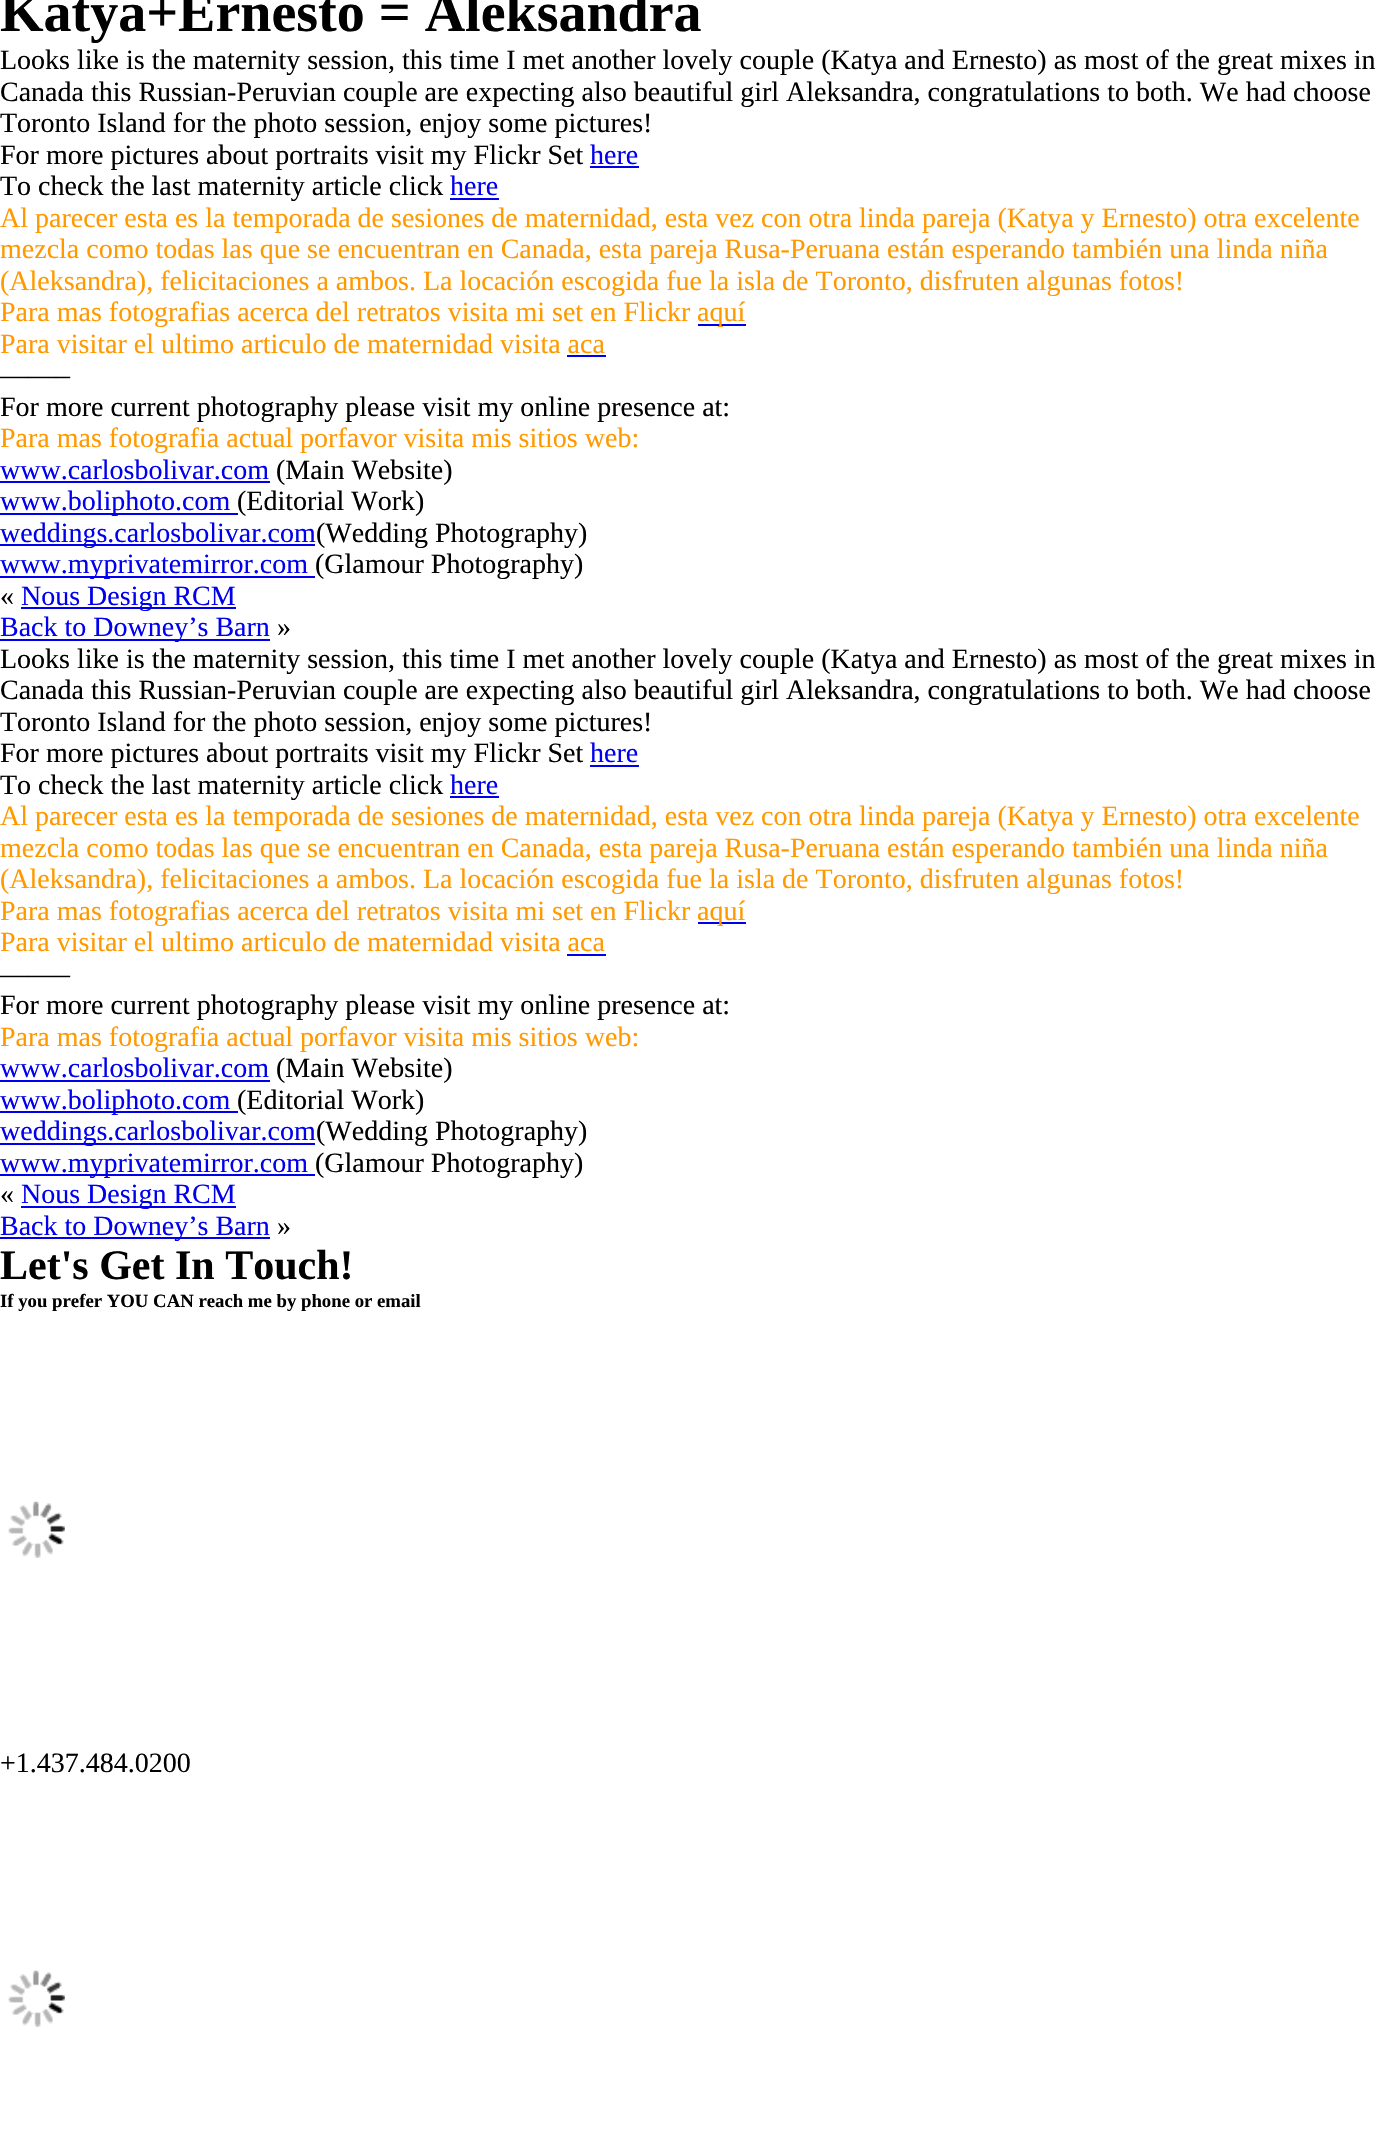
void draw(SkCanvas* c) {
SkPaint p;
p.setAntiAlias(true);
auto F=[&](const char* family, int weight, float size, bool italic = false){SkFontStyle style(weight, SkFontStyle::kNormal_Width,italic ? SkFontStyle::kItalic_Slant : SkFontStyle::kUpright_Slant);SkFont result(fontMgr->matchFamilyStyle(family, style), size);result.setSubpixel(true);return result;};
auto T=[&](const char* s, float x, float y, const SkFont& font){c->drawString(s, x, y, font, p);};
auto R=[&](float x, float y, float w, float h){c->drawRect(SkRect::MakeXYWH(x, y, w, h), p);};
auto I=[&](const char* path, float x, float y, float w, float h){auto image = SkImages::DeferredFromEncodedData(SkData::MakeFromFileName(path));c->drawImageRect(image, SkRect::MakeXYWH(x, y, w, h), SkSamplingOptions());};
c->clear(0xffffffff);
auto f1 = F("Liberation Serif",700,56);
p.setColor(0xff000000);
T("Katya+Ernesto = Aleksandra",0,31,f1);
auto f2 = F("Liberation Serif",400,28);
T("Looks like is the maternity session, this time I met another lovely couple (Katya and Ernesto) as most of the great mixes in",0,69,f2);
T("Canada this Russian-Peruvian couple are expecting also beautiful girl Aleksandra, congratulations to both. We had choose",0,101,f2);
T("Toronto Island for the photo session, enjoy some pictures!",0,132,f2);
T("For more pictures about portraits visit my Flickr Set",0,164,f2);
p.setColor(0xff0000ee);
T("here",590,164,f2);
R(590,166,49,2);
p.setColor(0xff000000);
T("To check the last maternity article click",0,195,f2);
p.setColor(0xff0000ee);
T("here",450,195,f2);
R(450,198,49,2);
p.setColor(0xffff9900);
T("Al parecer esta es la temporada de sesiones de maternidad, esta vez con otra linda pareja (Katya y Ernesto) otra excelente",0,227,f2);
T("mezcla como todas las que se encuentran en Canada, esta pareja Rusa-Peruana están esperando también una linda niña",0,258,f2);
T("(Aleksandra), felicitaciones a ambos. La locación escogida fue la isla de Toronto, disfruten algunas fotos!",0,290,f2);
T("Para mas fotografias acerca del retratos visita mi set en Flickr",0,321,f2);
p.setColor(0xff0000ee);
R(698,324,48,2);
p.setColor(0xffff9900);
T("aquí",697,321,f2);
T("Para visitar el ultimo articulo de maternidad visita aca",0,353,f2);
p.setColor(0xff0000ee);
R(567,355,39,2);
p.setColor(0xff000000);
T("——–",0,384,f2);
T("For more current photography please visit my online presence at:",0,416,f2);
p.setColor(0xffff9900);
T("Para mas fotografia actual porfavor visita mis sitios web:",0,447,f2);
p.setColor(0xff0000ee);
T("www.carlosbolivar.com",0,479,f2);
R(0,481,270,2);
p.setColor(0xff000000);
T("(Main Website)",276,479,f2);
p.setColor(0xff0000ee);
R(0,513,238,2);
T("www.boliphoto.com",0,510,f2);
p.setColor(0xff000000);
T("(Editorial Work)",237,510,f2);
p.setColor(0xff0000ee);
R(0,544,315,2);
T("weddings.carlosbolivar.com",0,542,f2);
p.setColor(0xff000000);
T("(Wedding Photography)",316,542,f2);
p.setColor(0xff0000ee);
R(0,576,315,2);
T("www.myprivatemirror.com",0,573,f2);
p.setColor(0xff000000);
T("(Glamour Photography)",315,573,f2);
T("«",0,605,f2);
p.setColor(0xff0000ee);
R(21,607,215,2);
T("Nous Design RCM",21,605,f2);
R(0,639,270,2);
T("Back to Downey’s Barn",0,636,f2);
p.setColor(0xff000000);
T("»",277,636,f2);
T("Looks like is the maternity session, this time I met another lovely couple (Katya and Ernesto) as most of the great mixes in",0,668,f2);
T("Canada this Russian-Peruvian couple are expecting also beautiful girl Aleksandra, congratulations to both. We had choose",0,699,f2);
T("Toronto Island for the photo session, enjoy some pictures!",0,731,f2);
T("For more pictures about portraits visit my Flickr Set",0,762,f2);
p.setColor(0xff0000ee);
T("here",590,762,f2);
R(590,765,49,2);
p.setColor(0xff000000);
T("To check the last maternity article click",0,794,f2);
p.setColor(0xff0000ee);
T("here",450,794,f2);
R(450,796,49,2);
p.setColor(0xffff9900);
T("Al parecer esta es la temporada de sesiones de maternidad, esta vez con otra linda pareja (Katya y Ernesto) otra excelente",0,825,f2);
T("mezcla como todas las que se encuentran en Canada, esta pareja Rusa-Peruana están esperando también una linda niña",0,857,f2);
T("(Aleksandra), felicitaciones a ambos. La locación escogida fue la isla de Toronto, disfruten algunas fotos!",0,888,f2);
T("Para mas fotografias acerca del retratos visita mi set en Flickr",0,920,f2);
p.setColor(0xff0000ee);
R(698,922,48,2);
p.setColor(0xffff9900);
T("aquí",697,920,f2);
T("Para visitar el ultimo articulo de maternidad visita aca",0,951,f2);
p.setColor(0xff0000ee);
R(567,954,39,2);
p.setColor(0xff000000);
T("——–",0,983,f2);
T("For more current photography please visit my online presence at:",0,1014,f2);
p.setColor(0xffff9900);
T("Para mas fotografia actual porfavor visita mis sitios web:",0,1046,f2);
p.setColor(0xff0000ee);
T("www.carlosbolivar.com",0,1077,f2);
R(0,1080,270,2);
p.setColor(0xff000000);
T("(Main Website)",276,1077,f2);
p.setColor(0xff0000ee);
R(0,1111,238,2);
T("www.boliphoto.com",0,1109,f2);
p.setColor(0xff000000);
T("(Editorial Work)",237,1109,f2);
p.setColor(0xff0000ee);
R(0,1143,315,2);
T("weddings.carlosbolivar.com",0,1140,f2);
p.setColor(0xff000000);
T("(Wedding Photography)",316,1140,f2);
p.setColor(0xff0000ee);
R(0,1174,315,2);
T("www.myprivatemirror.com",0,1172,f2);
p.setColor(0xff000000);
T("(Glamour Photography)",315,1172,f2);
T("«",0,1203,f2);
p.setColor(0xff0000ee);
R(21,1206,215,2);
T("Nous Design RCM",21,1203,f2);
R(0,1237,270,2);
T("Back to Downey’s Barn",0,1235,f2);
p.setColor(0xff000000);
T("»",277,1235,f2);
auto f3 = F("Liberation Serif",700,42);
T("Let's Get In Touch!",0,1279,f3);
auto f4 = F("Liberation Serif",700,18.75);
T("If you prefer YOU CAN reach me by phone or email",0,1307,f4);
I("1.png",8,1501,57,57);
T("+1.437.484.0200",0,1772,f2);
I("1.png",8,1970,57,57);
}
